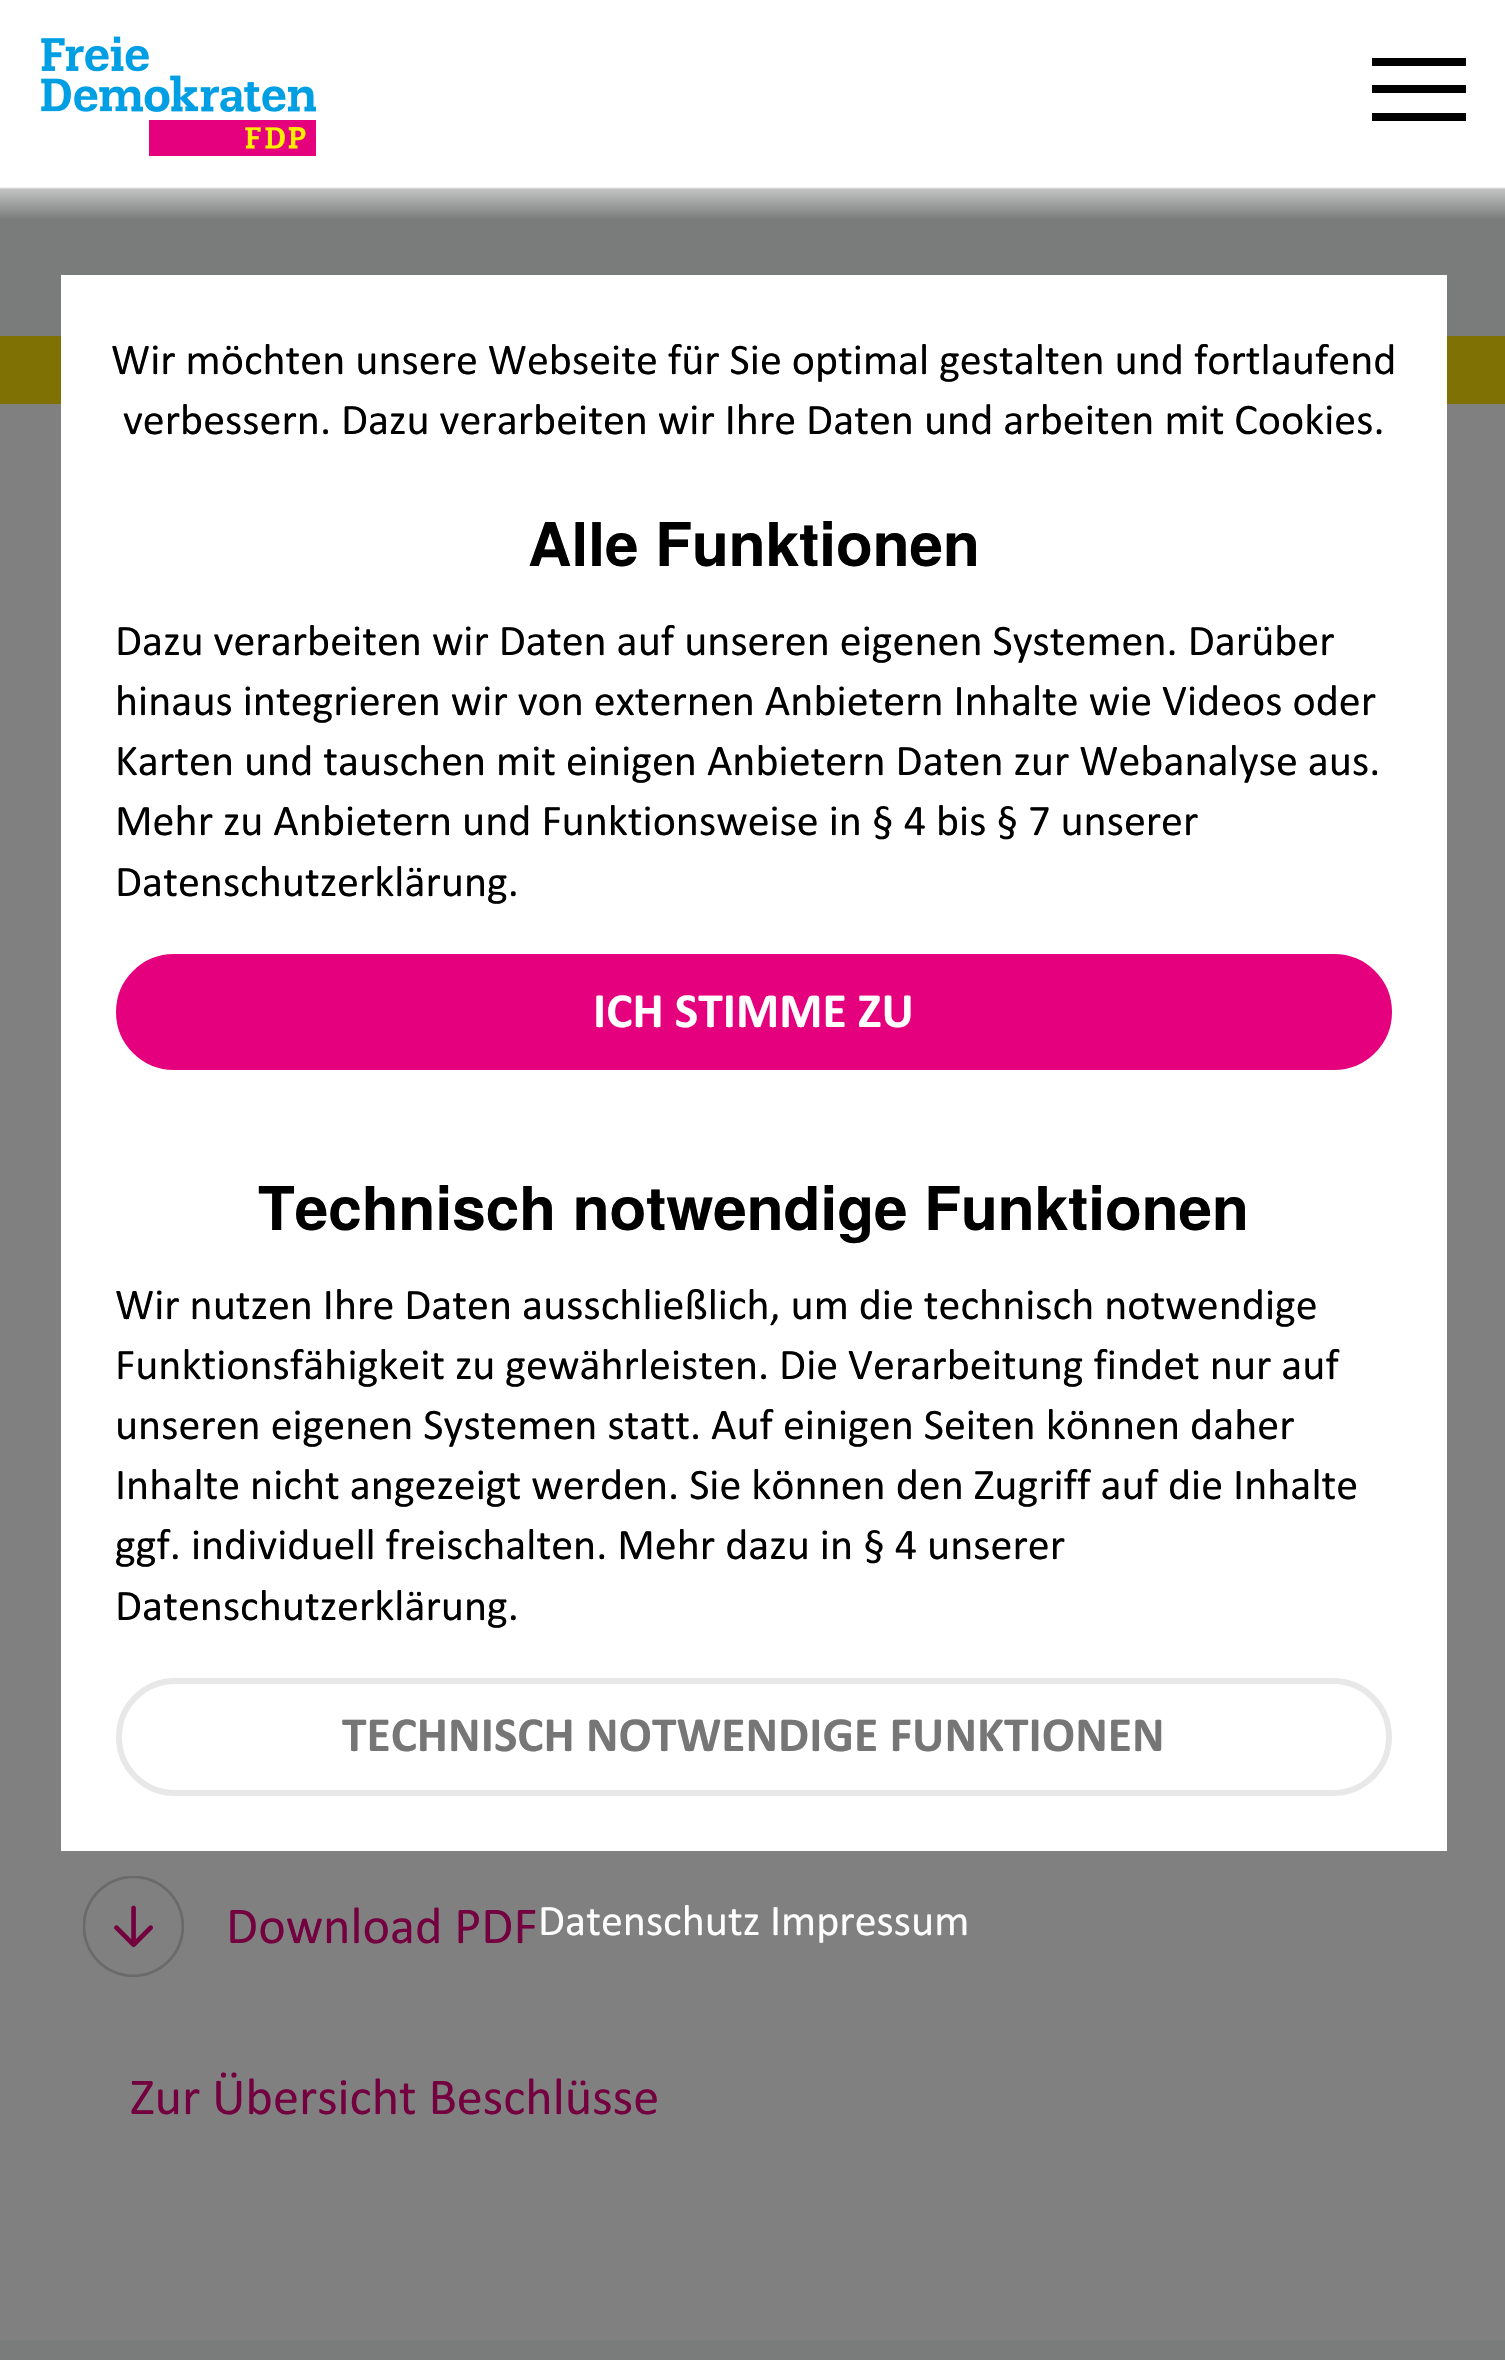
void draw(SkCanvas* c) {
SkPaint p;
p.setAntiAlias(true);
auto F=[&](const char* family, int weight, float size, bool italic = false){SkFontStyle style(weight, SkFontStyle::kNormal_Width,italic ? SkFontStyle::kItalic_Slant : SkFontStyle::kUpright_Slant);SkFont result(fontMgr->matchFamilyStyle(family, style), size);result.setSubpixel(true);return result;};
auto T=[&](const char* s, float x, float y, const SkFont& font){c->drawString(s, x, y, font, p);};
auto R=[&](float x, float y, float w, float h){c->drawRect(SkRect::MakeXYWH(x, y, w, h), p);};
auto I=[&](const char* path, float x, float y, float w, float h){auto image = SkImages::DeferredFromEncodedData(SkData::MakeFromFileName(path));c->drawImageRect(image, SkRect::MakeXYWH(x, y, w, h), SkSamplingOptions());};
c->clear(0xff7a7b7b);
p.setColor(0xff808080);
R(0,404,1505,1936);
p.setColor(0xff807105);
R(0,336,1505,68);
p.setColor(0xffffffff);
R(61,275,1386,1576);
auto f1 = F("Calibri",400,44);
p.setColor(0xff000000);
T("Wir möchten unsere Webseite für Sie optimal gestalten und fortlaufend",111,374,f1);
T("verbessern. Dazu verarbeiten wir Ihre Daten und arbeiten mit Cookies.",123,434,f1);
auto f2 = F("TeX Gyre Heros",700,60.25);
T("Alle Funktionen",528,566,f2);
T("Dazu verarbeiten wir Daten auf unseren eigenen Systemen. Darüber",115,655,f1);
T("hinaus integrieren wir von externen Anbietern Inhalte wie Videos oder",115,715,f1);
T("Karten und tauschen mit einigen Anbietern Daten zur Webanalyse aus.",115,775,f1);
T("Mehr zu Anbietern und Funktionsweise in § 4 bis § 7 unserer",115,835,f1);
T("Datenschutzerklärung.",115,896,f1);
p.setColor(0xffe5007d);
c->drawRoundRect(SkRect::MakeXYWH(119,957,1270,110),55,55,p);
p.setStroke(true);
p.setStrokeWidth(6);
c->drawRoundRect(SkRect::MakeXYWH(119,957,1270,110),55,55,p);
auto f3 = F("Calibri",700,49.5);
p.setStroke(false);
p.setColor(0xffffffff);
T("ICH STIMME ZU",593,1027,f3);
p.setColor(0xff000000);
T("Technisch notwendige Funktionen",258,1230,f2);
T("Wir nutzen Ihre Daten ausschließlich, um die technisch notwendige",115,1319,f1);
T("Funktionsfähigkeit zu gewährleisten. Die Verarbeitung findet nur auf",115,1379,f1);
T("unseren eigenen Systemen statt. Auf einigen Seiten können daher",115,1439,f1);
T("Inhalte nicht angezeigt werden. Sie können den Zugriff auf die Inhalte",115,1499,f1);
T("ggf. individuell freischalten. Mehr dazu in § 4 unserer",115,1559,f1);
T("Datenschutzerklärung.",115,1620,f1);
p.setStroke(true);
p.setColor(0xffe8e8e8);
c->drawRoundRect(SkRect::MakeXYWH(119,1681,1270,112),56,56,p);
p.setStroke(false);
p.setColor(0xff767676);
T("TECHNISCH NOTWENDIGE FUNKTIONEN",342,1751,f3);
p.setColor(0xffffffff);
T("Datenschutz Impressum",538,1935,f1);
{
const SkColor colors[] = {0xffffffff,0xffffffff,0x99f0f0f0,0x00f0f0f0};
const float stops[] = {0,.85,.86,1};
const SkPoint ends[] = {{754,0}, {754,220}};
p.setShader(SkGradientShader::MakeLinear(ends, colors, stops, 4, SkTileMode::kClamp));
p.setAlpha(255);
}
R(0,0,1505,219);
I("1.png",41,36,275,120);
p.setShader(nullptr);
p.setColor(0xff000000);
R(1372,85,94,8);
R(1372,58,94,8);
R(1372,113,94,8);
I("2.png",83,1876,101,101);
auto f4 = F("Calibri",400,52.25);
p.setColor(0xff73003f);
T("Download PDF",226,1943,f4);
T("Zur Übersicht Beschlüsse",130,2114,f4);
}
